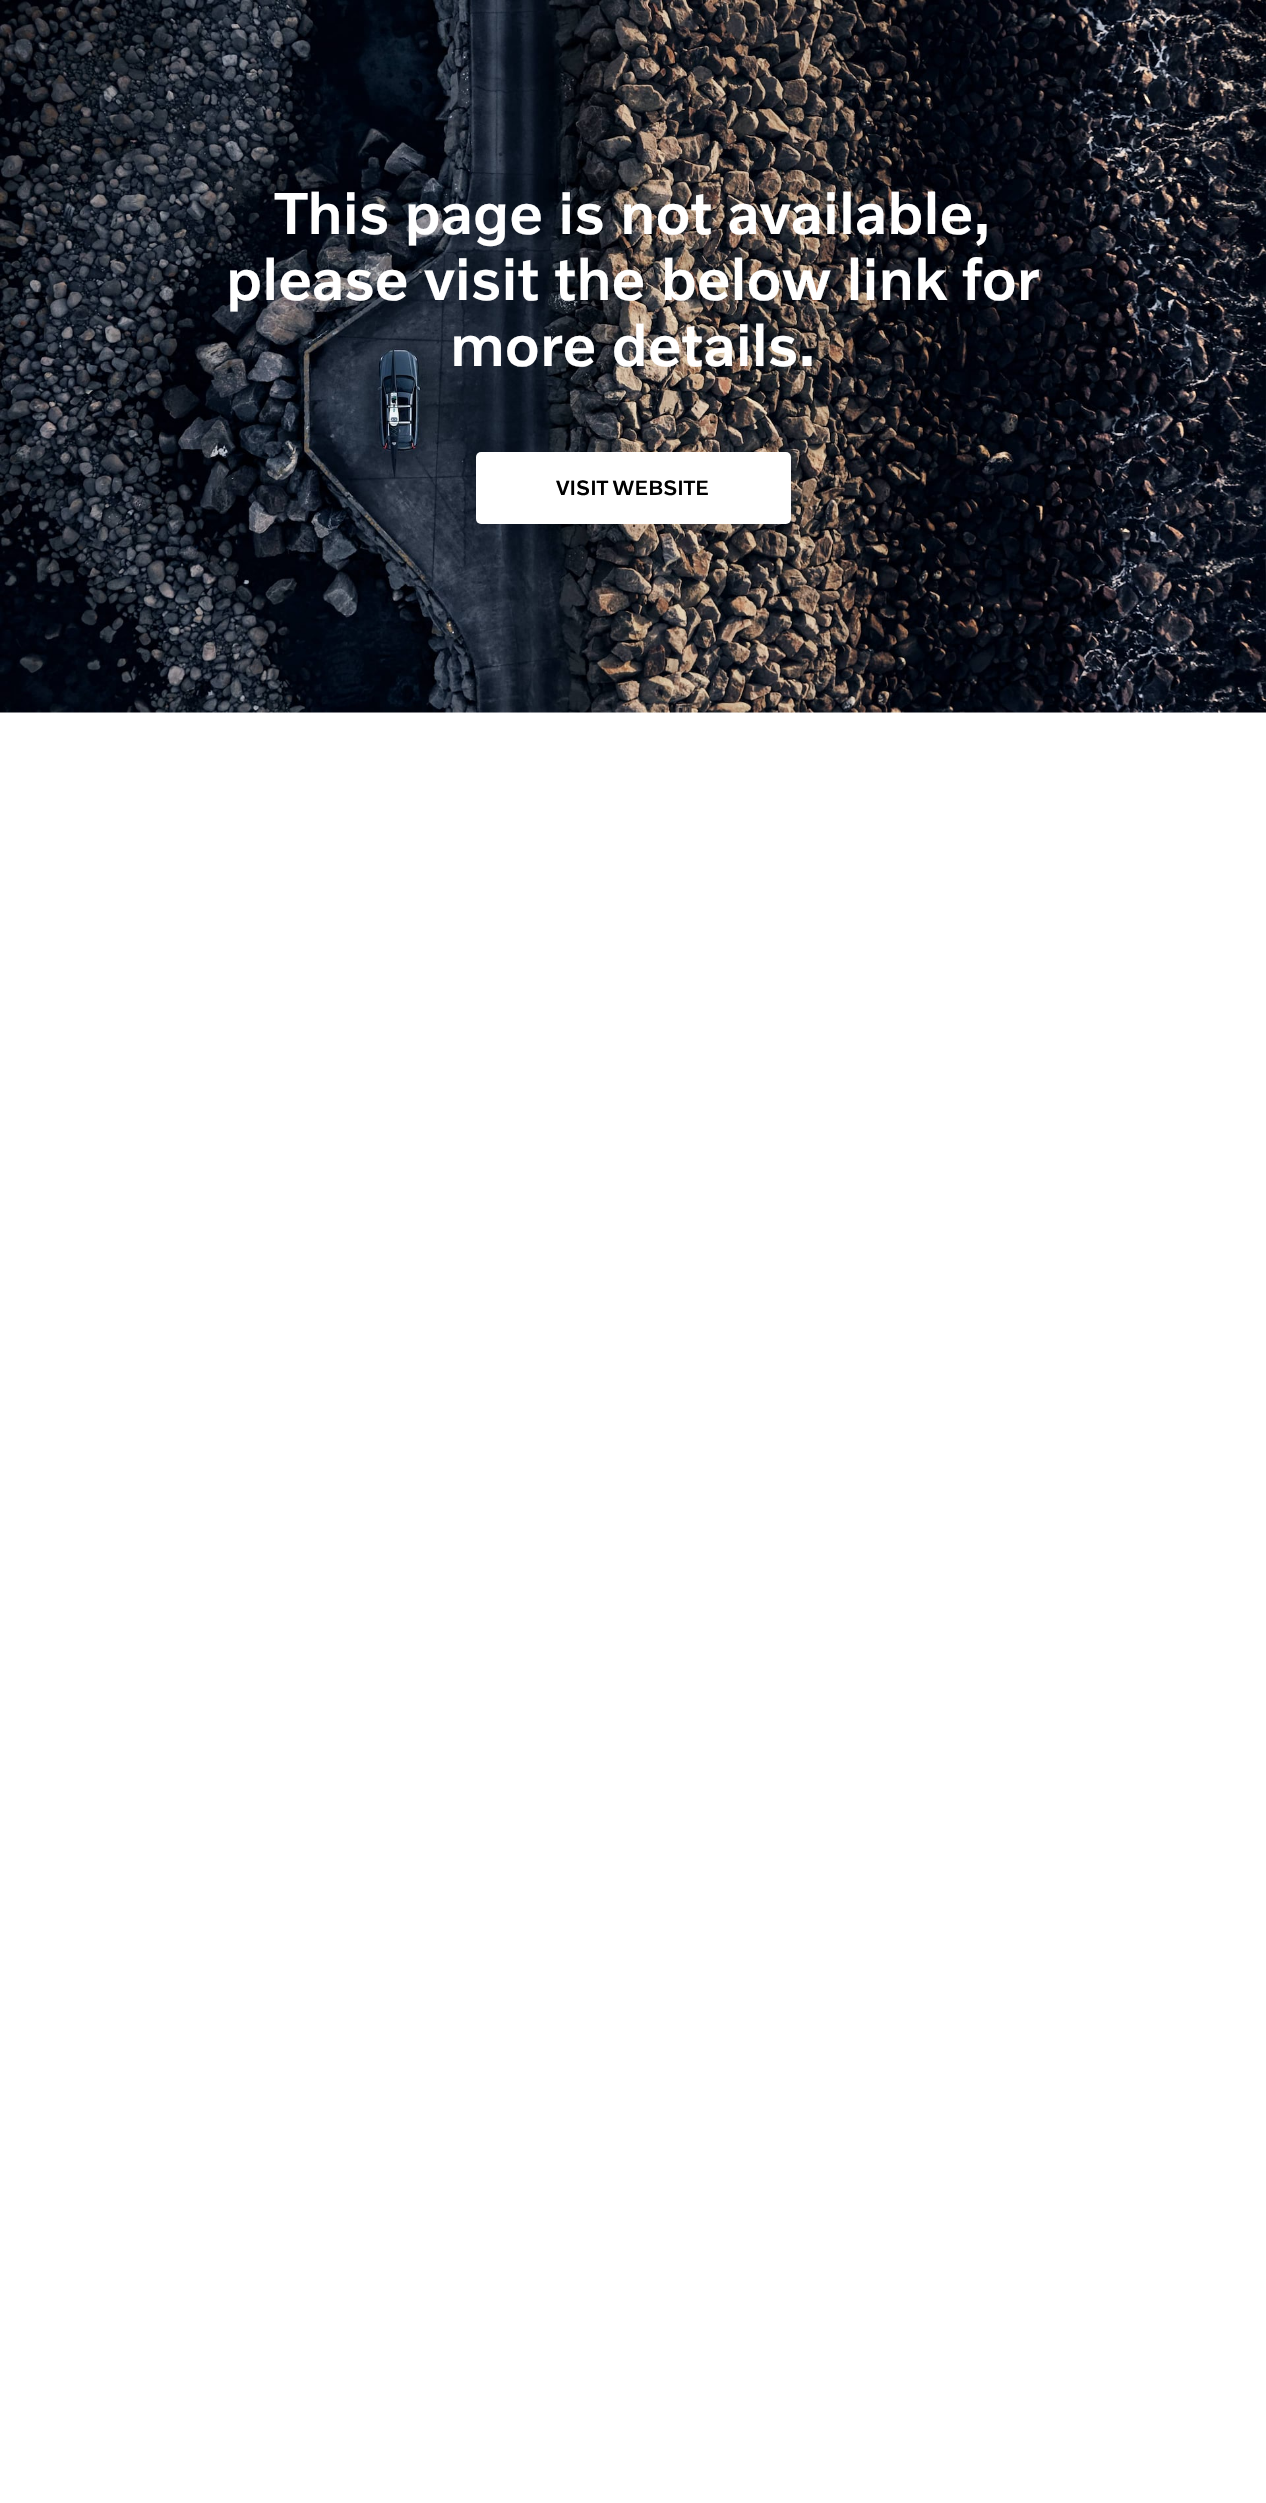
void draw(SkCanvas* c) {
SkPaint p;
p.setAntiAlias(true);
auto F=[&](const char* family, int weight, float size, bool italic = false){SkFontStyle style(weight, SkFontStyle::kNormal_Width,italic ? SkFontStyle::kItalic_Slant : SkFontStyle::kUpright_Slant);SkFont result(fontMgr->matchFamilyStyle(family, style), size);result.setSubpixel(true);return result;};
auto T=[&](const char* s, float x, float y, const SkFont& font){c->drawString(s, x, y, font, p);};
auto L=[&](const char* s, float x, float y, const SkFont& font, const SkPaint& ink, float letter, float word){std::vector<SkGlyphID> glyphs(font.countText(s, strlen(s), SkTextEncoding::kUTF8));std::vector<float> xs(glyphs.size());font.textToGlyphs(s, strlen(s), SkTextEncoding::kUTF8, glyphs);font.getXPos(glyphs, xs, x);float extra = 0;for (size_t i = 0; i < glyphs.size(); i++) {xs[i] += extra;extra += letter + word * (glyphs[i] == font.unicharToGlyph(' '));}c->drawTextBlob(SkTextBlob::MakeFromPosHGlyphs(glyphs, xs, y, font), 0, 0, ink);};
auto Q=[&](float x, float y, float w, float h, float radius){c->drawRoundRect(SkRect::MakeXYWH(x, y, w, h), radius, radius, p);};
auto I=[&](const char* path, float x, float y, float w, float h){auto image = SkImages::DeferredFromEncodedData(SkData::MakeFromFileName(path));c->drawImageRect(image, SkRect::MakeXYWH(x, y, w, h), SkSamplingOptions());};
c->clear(0xffffffff);
I("1.png",0,0,1266,713);
auto f1 = F("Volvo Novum",500,60);
p.setColor(0xffffffff);
T("This page is not available,",275,234,f1);
T("please visit the below link for",226,300,f1);
T("more details.",450,366,f1);
Q(476,452,315,72,5);
auto f2 = F("Volvo Novum",500,21);
p.setColor(0xff000000);
L("VISIT WEBSITE",556,495,f2,p,0,-1);
}
